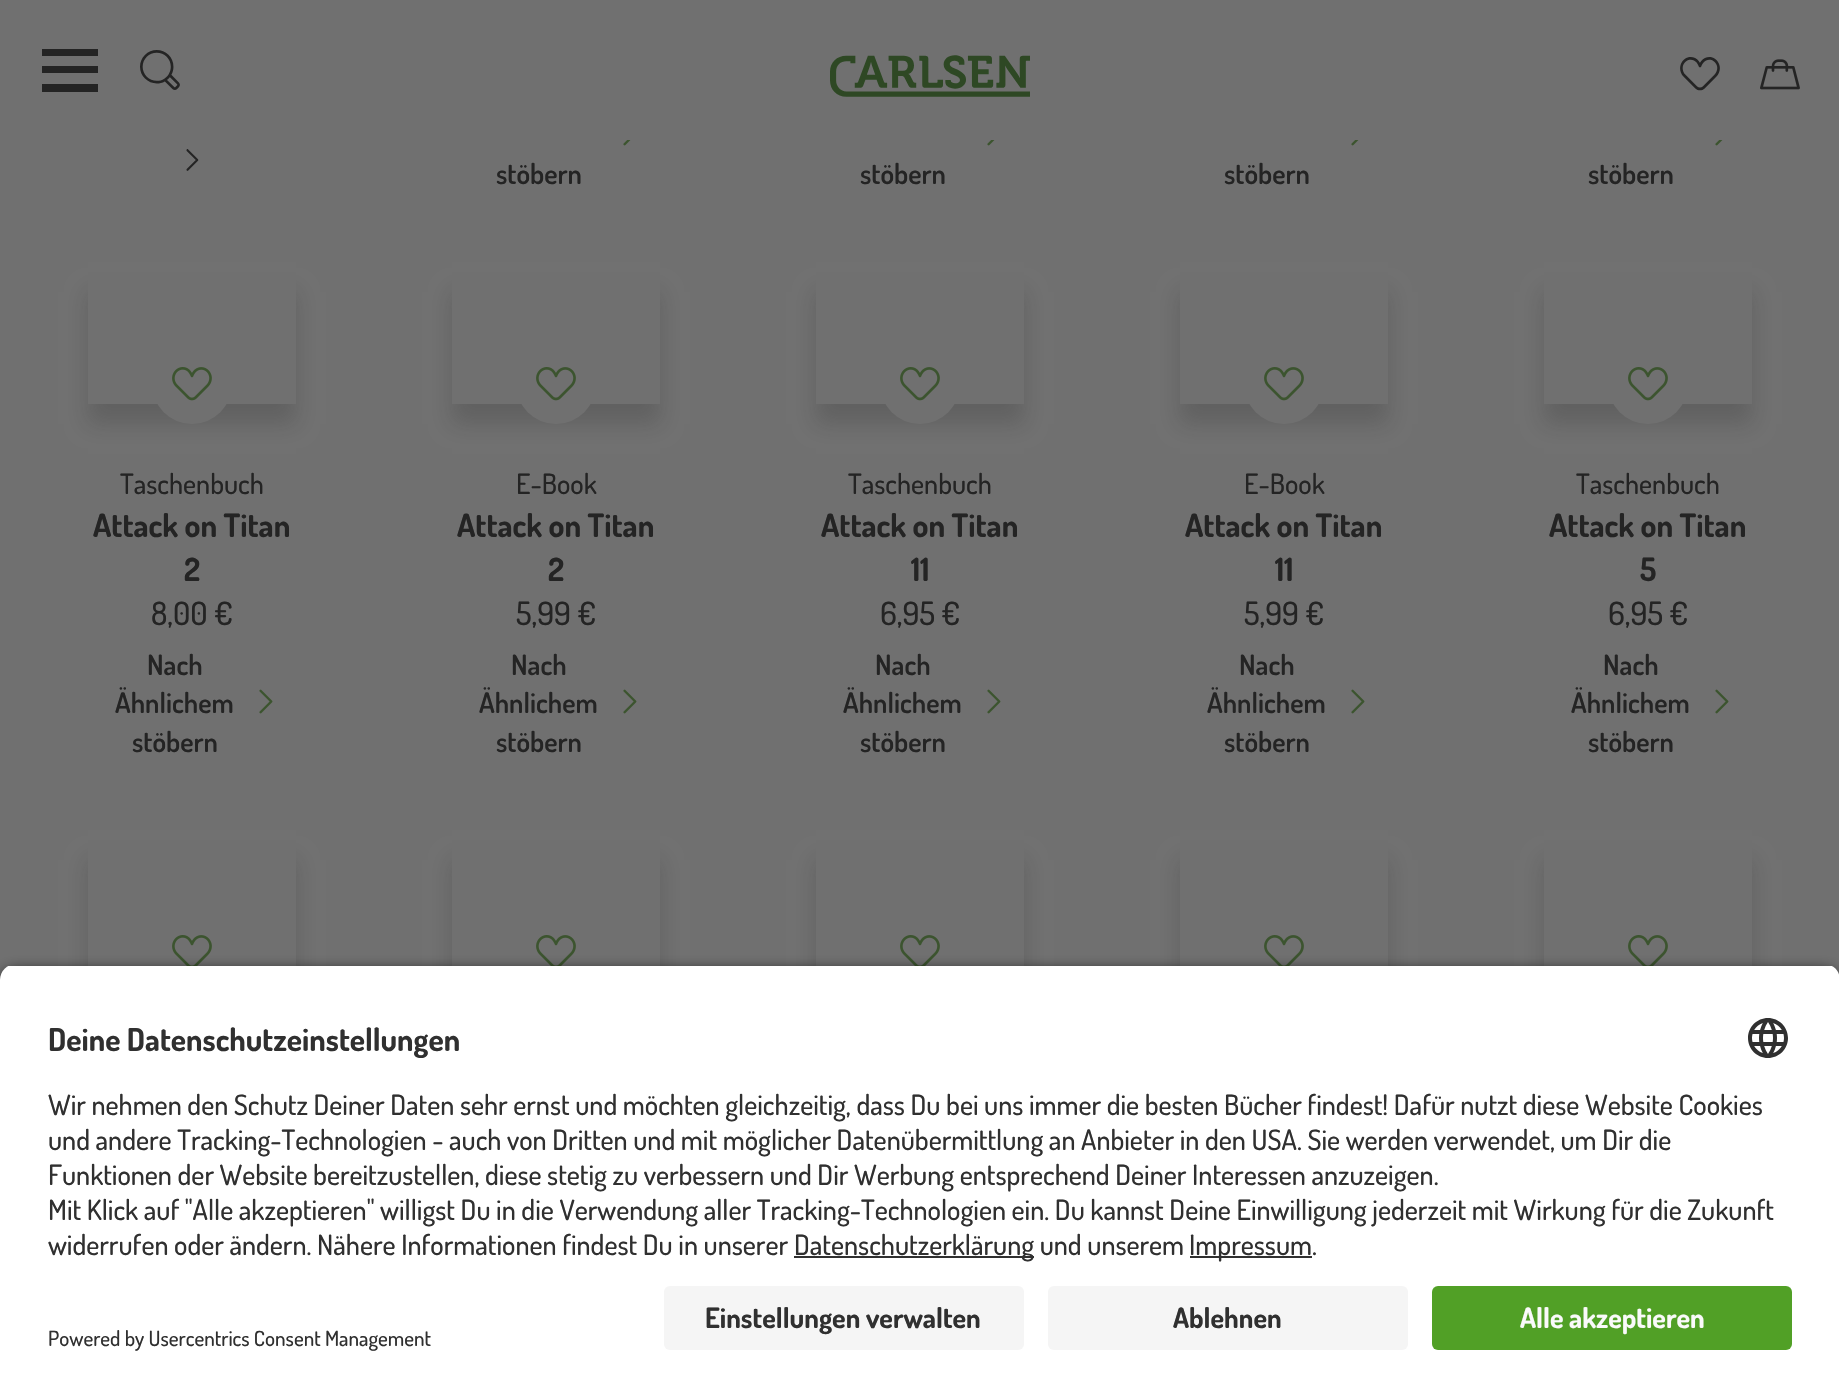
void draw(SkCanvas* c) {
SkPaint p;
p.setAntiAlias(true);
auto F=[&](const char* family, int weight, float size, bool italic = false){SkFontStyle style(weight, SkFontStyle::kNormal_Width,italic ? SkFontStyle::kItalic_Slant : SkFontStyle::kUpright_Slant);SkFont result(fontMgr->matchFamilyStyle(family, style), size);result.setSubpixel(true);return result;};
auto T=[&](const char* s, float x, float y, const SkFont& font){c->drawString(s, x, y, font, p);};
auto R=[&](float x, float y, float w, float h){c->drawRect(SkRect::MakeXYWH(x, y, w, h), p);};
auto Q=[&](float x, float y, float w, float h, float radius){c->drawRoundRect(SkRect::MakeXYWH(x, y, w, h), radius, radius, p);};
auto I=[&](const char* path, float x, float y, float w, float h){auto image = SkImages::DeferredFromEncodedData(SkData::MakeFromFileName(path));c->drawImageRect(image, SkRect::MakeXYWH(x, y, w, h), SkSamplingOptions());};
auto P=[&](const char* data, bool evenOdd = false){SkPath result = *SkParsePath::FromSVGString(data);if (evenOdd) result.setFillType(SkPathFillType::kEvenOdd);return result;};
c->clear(0xff707070);
p.setColor(0xff242424);
c->drawPath(P("M98 49v7h-56v-7zm0 17v7h-56v-7zm0 18v8h-56v-8z"),p);
I("1.png",140,50,40,40);
I("2.png",830,55,200,42);
I("3.png",1680,57,40,34);
I("4.png",1760,59,40,31);
I("5.png",186,149,13,22);
I("6.png",623,140,8,6);
auto f1 = F("Dosis",600,28);
T("stöbern",496,184,f1);
I("6.png",987,140,8,6);
T("stöbern",860,184,f1);
I("6.png",1351,140,8,6);
T("stöbern",1224,184,f1);
I("6.png",1715,140,8,6);
T("stöbern",1588,184,f1);
c->save();
c->clipPath(P("M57 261h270v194h-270zm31 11h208v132h-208z",true),true);
p.setColor(0x33242424);
p.setMaskFilter(SkMaskFilter::MakeBlur(kNormal_SkBlurStyle, 10));
c->drawRect(SkRect::MakeXYWH(88,292,208,132),p);
p.setMaskFilter(nullptr);
c->restore();
p.setColor(0xff707070);
c->drawCircle(192,384,40,p);
I("7.png",172,367,40,34);
auto f2 = F("Dosis",500,28);
p.setColor(0xff242424);
T("Taschenbuch",120,494,f2);
auto f3 = F("Dosis",700,32);
T("Attack on Titan",93,537,f3);
T("2",184,581,f3);
auto f4 = F("Dosis",500,32);
T("8,00 €",151,625,f4);
T("Nach",147,675,f1);
T("Ähnlichem",115,713,f1);
T("stöbern",132,752,f1);
I("8.png",259,689,14,25);
c->save();
c->clipPath(P("M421 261h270v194h-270zm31 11h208v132h-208z",true),true);
p.setColor(0x33242424);
p.setMaskFilter(SkMaskFilter::MakeBlur(kNormal_SkBlurStyle, 10));
c->drawRect(SkRect::MakeXYWH(452,292,208,132),p);
p.setMaskFilter(nullptr);
c->restore();
p.setColor(0xff707070);
c->drawCircle(556,384,40,p);
I("7.png",536,367,40,34);
p.setColor(0xff242424);
T("E-Book",516,494,f2);
T("Attack on Titan",457,537,f3);
T("2",548,581,f3);
T("5,99 €",516,625,f4);
T("Nach",511,675,f1);
T("Ähnlichem",479,713,f1);
T("stöbern",496,752,f1);
I("8.png",623,689,14,25);
c->save();
c->clipPath(P("M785 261h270v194h-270zm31 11h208v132h-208z",true),true);
p.setColor(0x33242424);
p.setMaskFilter(SkMaskFilter::MakeBlur(kNormal_SkBlurStyle, 10));
c->drawRect(SkRect::MakeXYWH(816,292,208,132),p);
p.setMaskFilter(nullptr);
c->restore();
p.setColor(0xff707070);
c->drawCircle(920,384,40,p);
I("7.png",900,367,40,34);
p.setColor(0xff242424);
T("Taschenbuch",848,494,f2);
T("Attack on Titan",821,537,f3);
T("11",911,581,f3);
T("6,95 €",880,625,f4);
T("Nach",875,675,f1);
T("Ähnlichem",843,713,f1);
T("stöbern",860,752,f1);
I("8.png",987,689,14,25);
c->save();
c->clipPath(P("M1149 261h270v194h-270zm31 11h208v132h-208z",true),true);
p.setColor(0x33242424);
p.setMaskFilter(SkMaskFilter::MakeBlur(kNormal_SkBlurStyle, 10));
c->drawRect(SkRect::MakeXYWH(1180,292,208,132),p);
p.setMaskFilter(nullptr);
c->restore();
p.setColor(0xff707070);
c->drawCircle(1284,384,40,p);
I("7.png",1264,367,40,34);
p.setColor(0xff242424);
T("E-Book",1244,494,f2);
T("Attack on Titan",1185,537,f3);
T("11",1275,581,f3);
T("5,99 €",1244,625,f4);
T("Nach",1239,675,f1);
T("Ähnlichem",1207,713,f1);
T("stöbern",1224,752,f1);
I("8.png",1351,689,14,25);
c->save();
c->clipPath(P("M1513 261h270v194h-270zm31 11h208v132h-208z",true),true);
p.setColor(0x33242424);
p.setMaskFilter(SkMaskFilter::MakeBlur(kNormal_SkBlurStyle, 10));
c->drawRect(SkRect::MakeXYWH(1544,292,208,132),p);
p.setMaskFilter(nullptr);
c->restore();
p.setColor(0xff707070);
c->drawCircle(1648,384,40,p);
I("7.png",1628,367,40,34);
p.setColor(0xff242424);
T("Taschenbuch",1576,494,f2);
T("Attack on Titan",1549,537,f3);
T("5",1640,581,f3);
T("6,95 €",1608,625,f4);
T("Nach",1603,675,f1);
T("Ähnlichem",1571,713,f1);
T("stöbern",1588,752,f1);
I("8.png",1715,689,14,25);
c->save();
c->clipPath(P("M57 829h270v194h-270zm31 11h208v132h-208z",true),true);
p.setColor(0x33242424);
p.setMaskFilter(SkMaskFilter::MakeBlur(kNormal_SkBlurStyle, 10));
c->drawRect(SkRect::MakeXYWH(88,860,208,132),p);
p.setMaskFilter(nullptr);
c->restore();
p.setColor(0xff707070);
c->drawCircle(192,952,40,p);
I("9.png",172,935,40,31);
c->save();
c->clipPath(P("M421 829h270v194h-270zm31 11h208v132h-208z",true),true);
p.setColor(0x33242424);
p.setMaskFilter(SkMaskFilter::MakeBlur(kNormal_SkBlurStyle, 10));
c->drawRect(SkRect::MakeXYWH(452,860,208,132),p);
p.setMaskFilter(nullptr);
c->restore();
p.setColor(0xff707070);
c->drawCircle(556,952,40,p);
I("9.png",536,935,40,31);
c->save();
c->clipPath(P("M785 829h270v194h-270zm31 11h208v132h-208z",true),true);
p.setColor(0x33242424);
p.setMaskFilter(SkMaskFilter::MakeBlur(kNormal_SkBlurStyle, 10));
c->drawRect(SkRect::MakeXYWH(816,860,208,132),p);
p.setMaskFilter(nullptr);
c->restore();
p.setColor(0xff707070);
c->drawCircle(920,952,40,p);
I("9.png",900,935,40,31);
c->save();
c->clipPath(P("M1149 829h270v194h-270zm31 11h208v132h-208z",true),true);
p.setColor(0x33242424);
p.setMaskFilter(SkMaskFilter::MakeBlur(kNormal_SkBlurStyle, 10));
c->drawRect(SkRect::MakeXYWH(1180,860,208,132),p);
p.setMaskFilter(nullptr);
c->restore();
p.setColor(0xff707070);
c->drawCircle(1284,952,40,p);
I("9.png",1264,935,40,31);
c->save();
c->clipPath(P("M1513 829h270v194h-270zm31 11h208v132h-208z",true),true);
p.setColor(0x33242424);
p.setMaskFilter(SkMaskFilter::MakeBlur(kNormal_SkBlurStyle, 10));
c->drawRect(SkRect::MakeXYWH(1544,860,208,132),p);
p.setMaskFilter(nullptr);
c->restore();
p.setColor(0xff707070);
c->drawCircle(1648,952,40,p);
I("9.png",1628,935,40,31);
p.setColor(0xcc000000);
p.setMaskFilter(SkMaskFilter::MakeBlur(kNormal_SkBlurStyle, 7));
c->drawRoundRect(SkRect::MakeXYWH(0,970,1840,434),16,16,p);
p.setMaskFilter(nullptr);
c->save();
c->clipPath(P("M16 964h1808c9 0 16 7 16 16v290h-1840v-290c0-9 7-16 16-16z"),true);
p.setColor(0xffffffff);
R(0,966,1839,304);
c->restore();
auto f5 = F("Dosis",700,31.5);
p.setColor(0xff303030);
T("Deine Datenschutzeinstellungen",48,1051,f5);
I("10.png",1748,1018,40,40);
T("Wir nehmen den Schutz Deiner Daten sehr ernst und möchten gleichzeitig, dass Du bei uns immer die besten Bücher findest! Dafür nutzt diese Website Cookies",48,1115,f2);
T("und andere Tracking-Technologien - auch von Dritten und mit möglicher Datenübermittlung an Anbieter in den USA. Sie werden verwendet, um Dir die",48,1150,f2);
T("Funktionen der Website bereitzustellen, diese stetig zu verbessern und Dir Werbung entsprechend Deiner Interessen anzuzeigen.",48,1185,f2);
T("Mit Klick auf \"Alle akzeptieren\" willigst Du in die Verwendung aller Tracking-Technologien ein. Du kannst Deine Einwilligung jederzeit mit Wirkung für die Zukunft",48,1220,f2);
T("widerrufen oder ändern. Nähere Informationen findest Du in unserer",48,1255,f2);
R(794,1256,240,2);
T("Datenschutzerklärung und unserem",794,1255,f2);
R(1190,1256,122,2);
T("Impressum.",1189,1255,f2);
p.setColor(0xffffffff);
R(0,1270,1839,127);
p.setColor(0xfff5f5f5);
Q(664,1286,360,64,6);
auto f6 = F("Dosis",700,28);
p.setColor(0xff303030);
T("Einstellungen verwalten",705,1328,f6);
p.setColor(0xfff5f5f5);
Q(1048,1286,360,64,6);
p.setColor(0xff303030);
T("Ablehnen",1173,1328,f6);
p.setColor(0xff51a026);
Q(1432,1286,360,64,6);
p.setColor(0xfffafafa);
T("Alle akzeptieren",1520,1328,f6);
auto f7 = F("Dosis",500,21);
p.setColor(0xff303030);
T("Powered by Usercentrics Consent Management",48,1346,f7);
}
